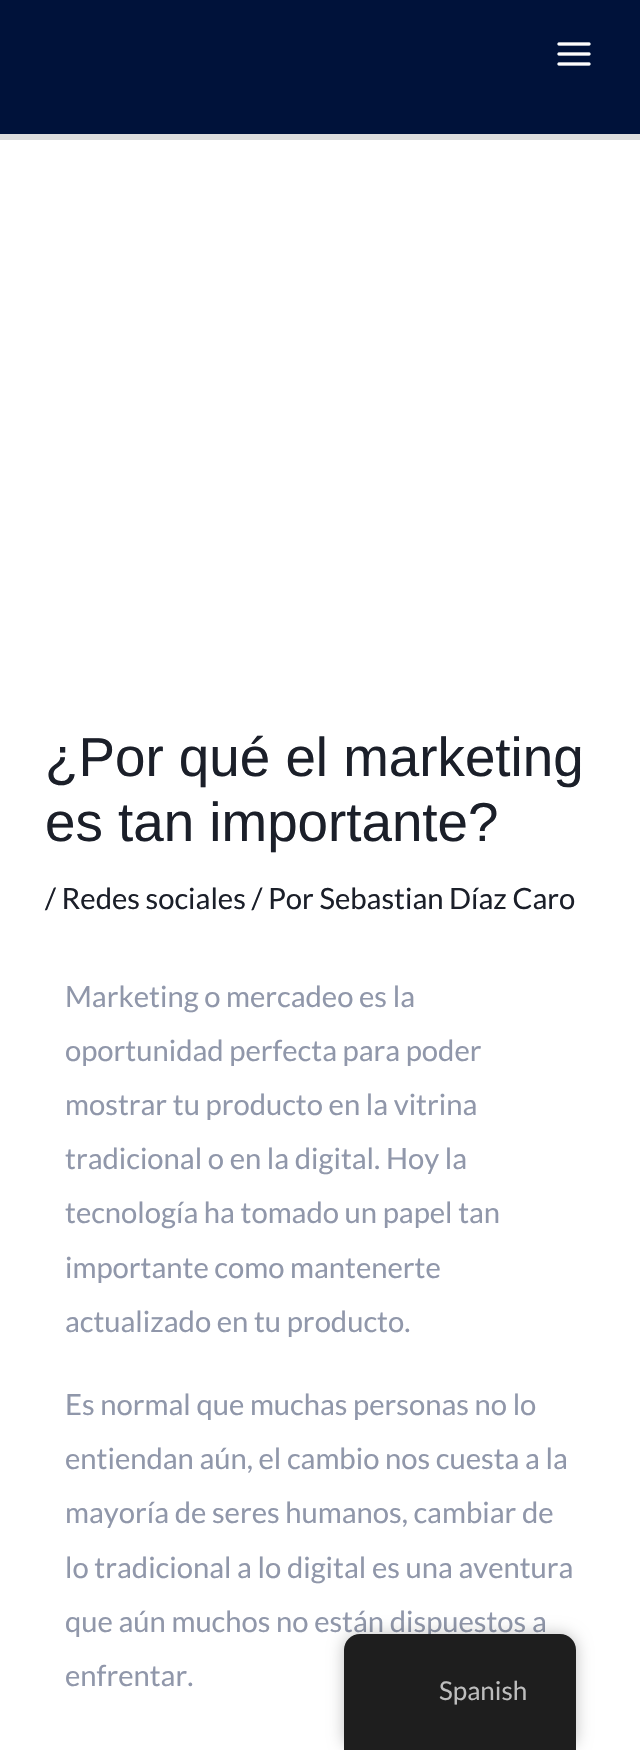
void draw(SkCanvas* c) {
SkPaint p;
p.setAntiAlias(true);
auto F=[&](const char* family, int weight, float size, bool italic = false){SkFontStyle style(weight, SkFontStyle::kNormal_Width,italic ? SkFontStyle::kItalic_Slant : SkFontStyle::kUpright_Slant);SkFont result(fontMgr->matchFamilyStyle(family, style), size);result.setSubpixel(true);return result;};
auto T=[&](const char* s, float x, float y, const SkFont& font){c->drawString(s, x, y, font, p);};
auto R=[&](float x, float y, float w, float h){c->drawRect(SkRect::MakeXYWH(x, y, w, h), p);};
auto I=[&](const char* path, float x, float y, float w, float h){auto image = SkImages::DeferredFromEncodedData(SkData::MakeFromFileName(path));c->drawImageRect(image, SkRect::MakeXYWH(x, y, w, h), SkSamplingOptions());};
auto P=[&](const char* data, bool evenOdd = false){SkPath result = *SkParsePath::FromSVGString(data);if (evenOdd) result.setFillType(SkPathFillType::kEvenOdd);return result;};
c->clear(0xffffffff);
p.setColor(0xff00123a);
R(0,0,640,134);
p.setColor(0xffdddddd);
R(0,134,640,6);
I("1.png",557,42,34,24);
auto f1 = F("Liberation Sans",400,54.75);
p.setColor(0xff1b1f29);
T("¿Por qué el marketing",45,776,f1);
T("es tan importante?",45,841,f1);
auto f2 = F("Lato",400,29.2);
T("/ Redes sociales / Por Sebastian Díaz Caro",45,909,f2);
p.setColor(0xff9097aa);
T("Marketing o mercadeo es la",65,1007,f2);
T("oportunidad perfecta para poder",65,1061,f2);
T("mostrar tu producto en la vitrina",65,1115,f2);
T("tradicional o en la digital. Hoy la",65,1169,f2);
T("tecnología ha tomado un papel tan",65,1223,f2);
T("importante como mantenerte",65,1278,f2);
T("actualizado en tu producto.",65,1332,f2);
T("Es normal que muchas personas no lo",65,1415,f2);
T("entiendan aún, el cambio nos cuesta a la",65,1469,f2);
T("mayoría de seres humanos, cambiar de",65,1523,f2);
T("lo tradicional a lo digital es una aventura",65,1578,f2);
T("que aún muchos no están dispuestos a",65,1632,f2);
T("enfrentar.",65,1686,f2);
p.setColor(0x40000000);
p.setMaskFilter(SkMaskFilter::MakeBlur(kNormal_SkBlurStyle, 8));
c->drawRoundRect(SkRect::MakeXYWH(344,1634,232,116),16,16,p);
p.setMaskFilter(nullptr);
p.setColor(0xff1e1e1e);
c->drawPath(P("M360 1634h200c9 0 16 7 16 16v100h-232v-100c0-9 7-16 16-16z"),p);
auto f3 = F("Lato",400,26);
p.setColor(0xffbdbdbd);
T("Spanish",439,1700,f3);
}
